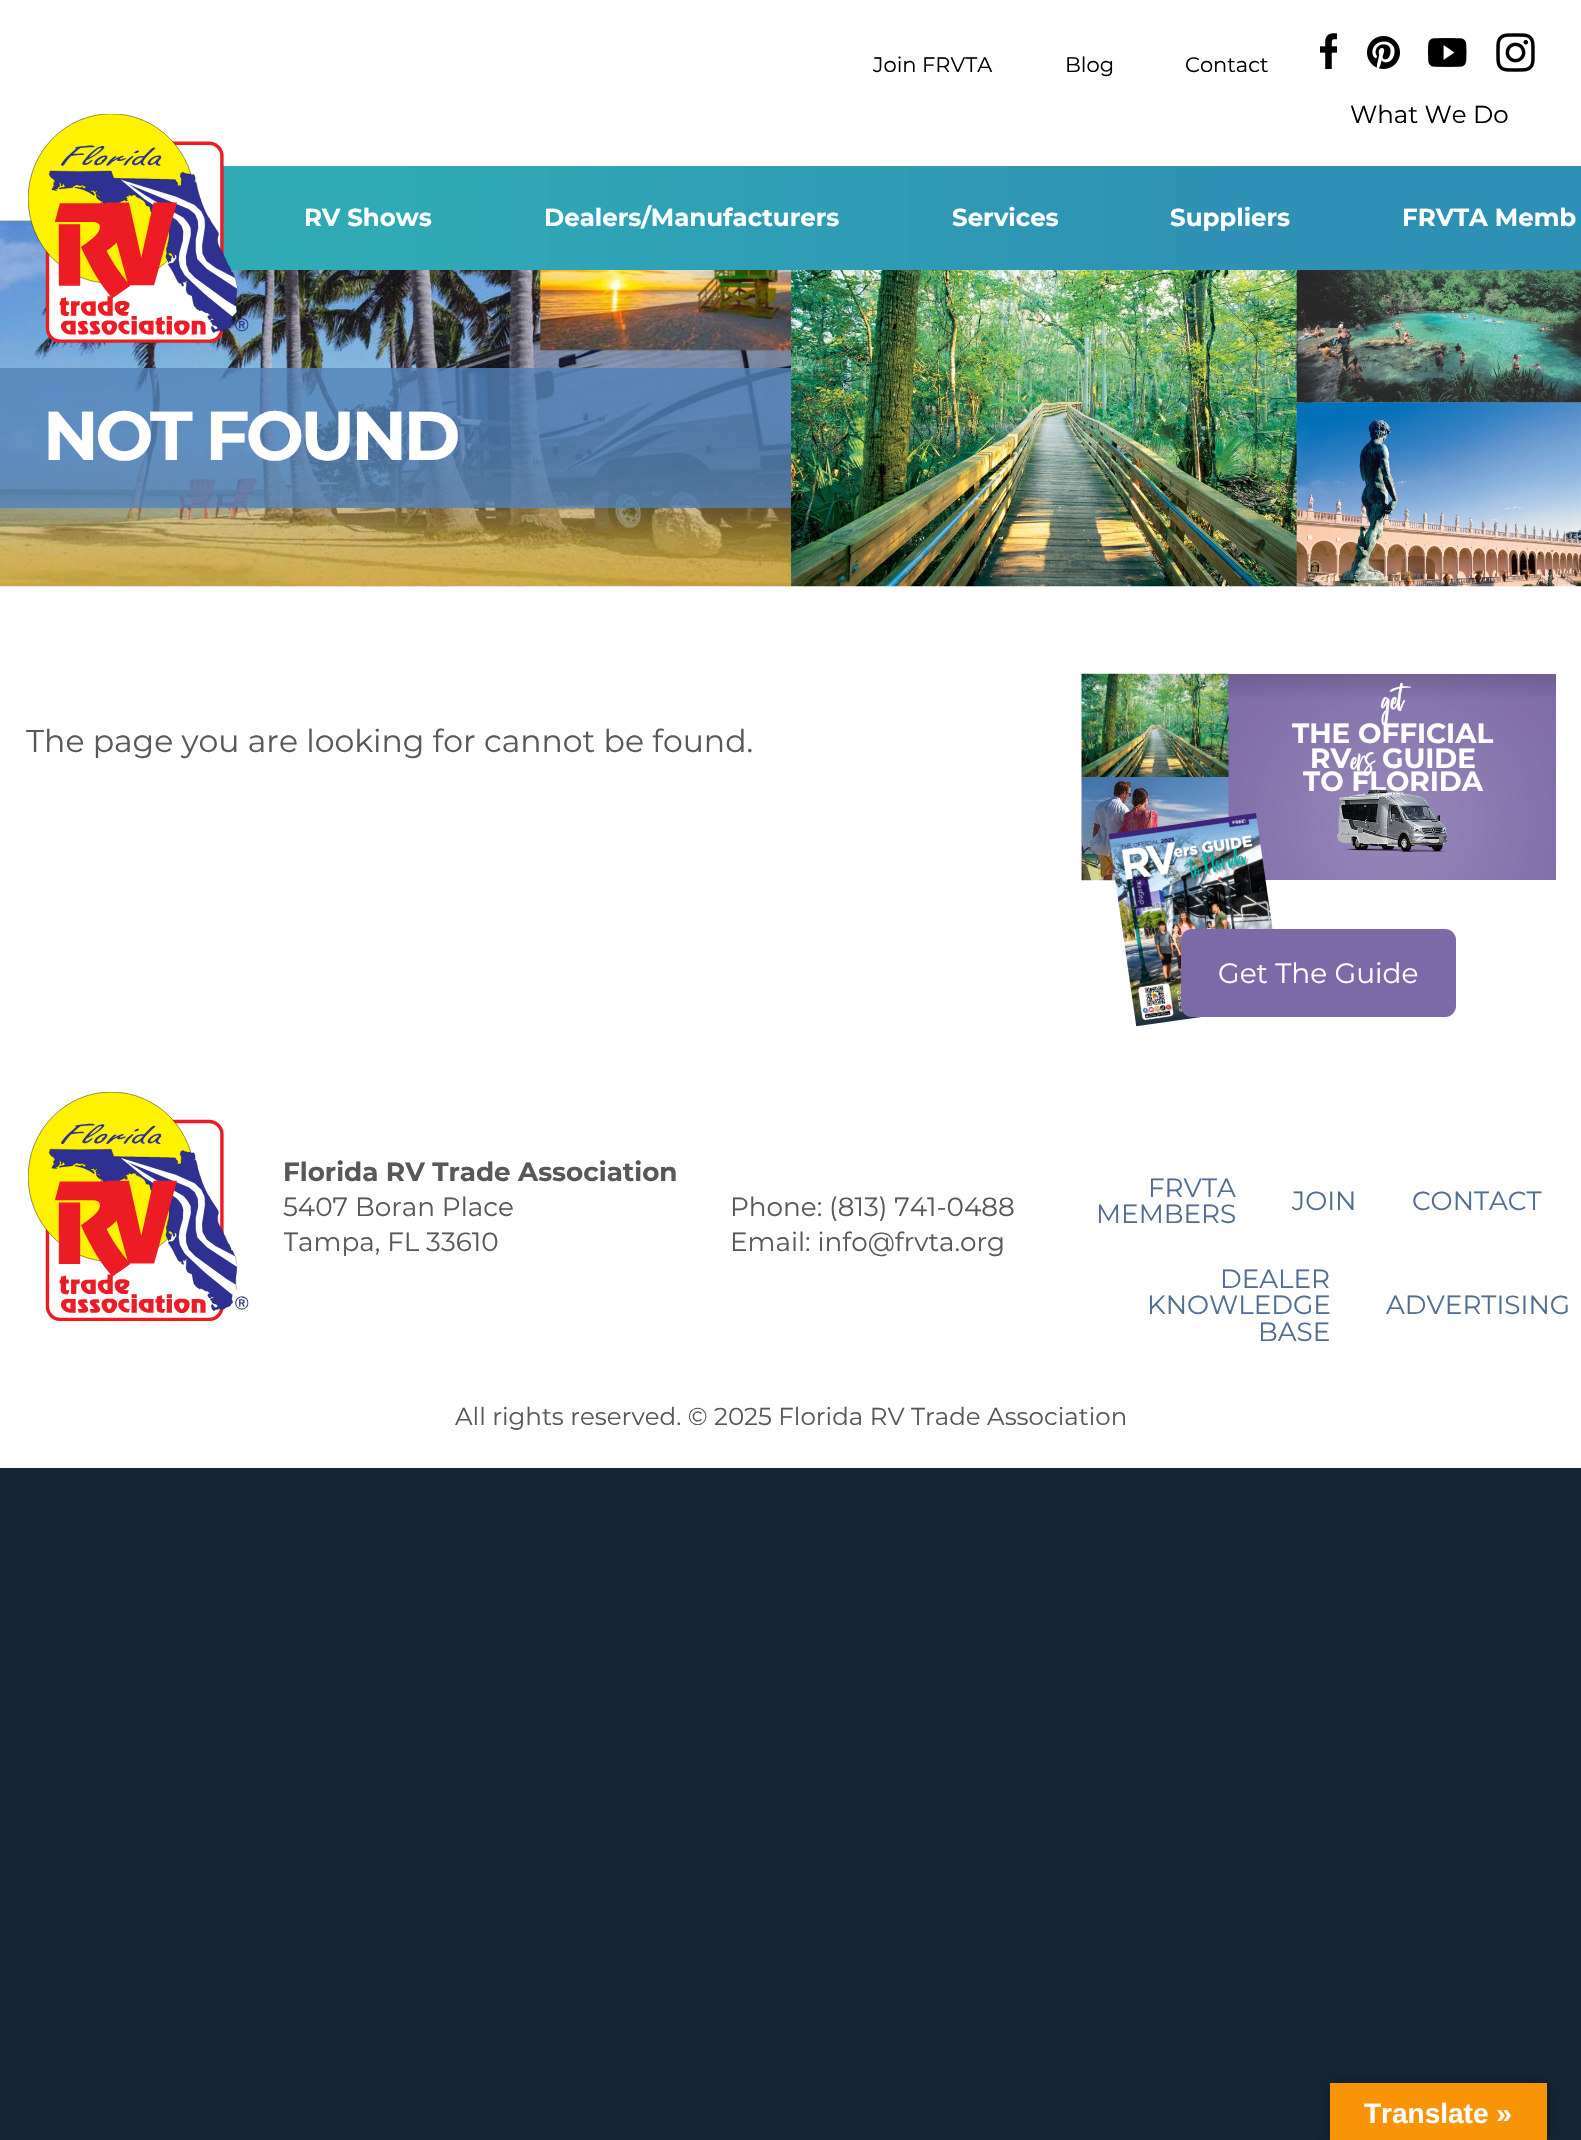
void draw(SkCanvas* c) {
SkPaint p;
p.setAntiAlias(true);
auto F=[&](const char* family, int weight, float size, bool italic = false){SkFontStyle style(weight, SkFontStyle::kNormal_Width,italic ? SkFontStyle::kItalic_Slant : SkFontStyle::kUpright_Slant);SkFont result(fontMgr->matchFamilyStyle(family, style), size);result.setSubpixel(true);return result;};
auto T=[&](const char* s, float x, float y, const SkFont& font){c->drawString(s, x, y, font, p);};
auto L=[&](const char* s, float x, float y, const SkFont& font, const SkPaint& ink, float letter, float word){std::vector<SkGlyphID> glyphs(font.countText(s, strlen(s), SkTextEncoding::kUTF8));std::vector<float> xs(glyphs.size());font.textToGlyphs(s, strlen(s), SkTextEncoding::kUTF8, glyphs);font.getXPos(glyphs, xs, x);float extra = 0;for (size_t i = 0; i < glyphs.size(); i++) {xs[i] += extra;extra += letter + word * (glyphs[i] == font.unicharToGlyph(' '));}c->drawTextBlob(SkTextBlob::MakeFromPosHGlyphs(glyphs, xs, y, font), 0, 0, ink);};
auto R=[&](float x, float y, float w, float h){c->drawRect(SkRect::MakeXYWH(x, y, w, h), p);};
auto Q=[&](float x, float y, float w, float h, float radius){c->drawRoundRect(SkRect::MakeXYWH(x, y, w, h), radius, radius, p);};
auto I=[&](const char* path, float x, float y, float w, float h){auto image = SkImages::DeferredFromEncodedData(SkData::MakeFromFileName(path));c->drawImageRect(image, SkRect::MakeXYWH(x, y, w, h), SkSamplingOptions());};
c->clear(0xff142536);
p.setColor(0xffffffff);
R(0,0,1581,1468);
auto f1 = F("Montserrat",400,21);
p.setColor(0xff000000);
T("Join FRVTA",873,72,f1);
T("Blog",1065,72,f1);
T("Contact",1185,72,f1);
I("1.png",1320,33,17,36);
I("2.png",1367,36,33,33);
I("3.png",1428,38,39,29);
I("4.png",1496,33,39,39);
auto f2 = F("Montserrat",400,24.5);
T("What We Do",1350,123,f2);
I("6.png",0,220,791,367);
{
const SkColor colors[] = {0xff30abb6,0xff2e90b5};
const float stops[] = {.1,.7};
const SkPoint ends[] = {{214,218}, {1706,218}};
p.setShader(SkGradientShader::MakeLinear(ends, colors, stops, 2, SkTileMode::kClamp));
p.setAlpha(255);
}
R(223,166,1358,104);
I("5.png",28,114,221,229);
auto f3 = F("Montserrat",700,24.5);
p.setShader(nullptr);
p.setColor(0xffffffff);
T("RV Shows",304,226,f3);
T("Dealers/Manufacturers",544,226,f3);
T("Services",952,226,f3);
T("Suppliers",1170,226,f3);
T("FRVTA Memb",1402,226,f3);
p.setColor(0xcc5182b9);
R(0,368,1581,140);
p.setColor(0xff7d6aa8);
R(1228,674,328,206);
p.setColor(0xffffffff);
p.setMaskFilter(SkMaskFilter::MakeBlur(kNormal_SkBlurStyle, 87.5));
c->drawRoundRect(SkRect::MakeXYWH(1311,789,164,63),31.5,31.5,p);
p.setMaskFilter(nullptr);
I("7.png",791,270,522,317);
I("8.png",1296,270,285,133);
I("9.png",1296,402,285,185);
auto f4 = F("Montserrat",700,69);
L("NOT FOUND",43,460,f4,p,-3.5,0);
auto f5 = F("Montserrat",400,31.5);
p.setColor(0xff585858);
T("The page you are looking for cannot be found.",26,752,f5);
I("10.png",1081,673,148,104);
{
const SkColor colors[] = {0x21000000,0x00000000};
const float stops[] = {0,1};
const SkPoint ends[] = {{1319,674}, {1319,702}};
p.setShader(SkGradientShader::MakeLinear(ends, colors, stops, 2, SkTileMode::kClamp));
p.setAlpha(255);
}
R(1082,674,474,23);
I("11.png",1081,777,148,104);
auto f6 = F("Montserrat",700,27.75);
p.setShader(nullptr);
p.setColor(0xffffffff);
T("TO FLORIDA",1303,791,f6);
I("12.png",1337,789,111,63);
auto f7 = F("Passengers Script",400,27.75);
T("get",1382,708,f7);
T("THE OFFICIAL",1292,743,f6);
T("RV",1310,768,f6);
T("ers",1351,768,f7);
T("GUIDE",1382,768,f6);
I("13.png",1108,813,165,214);
p.setColor(0xff7c69a8);
Q(1181,929,275,88,11);
auto f8 = F("Montserrat",400,28);
p.setColor(0xffffffff);
T("Get The Guide",1218,983,f8);
I("14.png",28,1092,221,229);
auto f9 = F("Montserrat",700,26.25);
p.setColor(0xff585858);
T("Florida RV Trade Association",283,1181,f9);
auto f10 = F("Montserrat",400,26.25);
T("5407 Boran Place",283,1216,f10);
c->save();
c->clipRect(SkRect::MakeXYWH(284,1190,393,70));
T("Tampa, FL 33610",283,1251,f10);
c->restore();
T("Phone: (813) 741-0488",730,1216,f10);
T("Email: info@frvta.org",730,1251,f10);
p.setColor(0xff516e8f);
T("FRVTA",1148,1197,f10);
T("MEMBERS",1096,1223,f10);
T("JOIN",1292,1210,f10);
T("CONTACT",1412,1210,f10);
T("DEALER",1220,1288,f10);
T("KNOWLEDGE",1147,1314,f10);
T("BASE",1258,1341,f10);
T("ADVERTISING",1386,1314,f10);
p.setColor(0xff585858);
T("All rights reserved. © 2025 Florida RV Trade Association",455,1425,f2);
p.setColor(0x4d000000);
p.setMaskFilter(SkMaskFilter::MakeBlur(kNormal_SkBlurStyle, 8));
c->drawRect(SkRect::MakeXYWH(1330,2083,217,57),p);
p.setMaskFilter(nullptr);
p.setColor(0xfff89406);
R(1330,2083,217,57);
auto f11 = F("Liberation Sans",700,28);
p.setColor(0xffffffff);
T("Translate »",1364,2123,f11);
}
